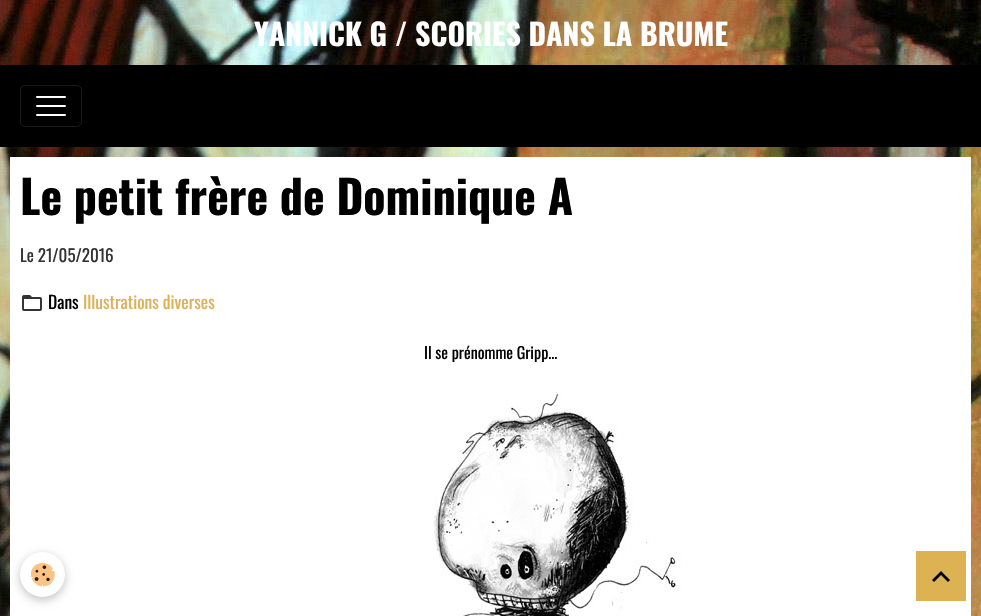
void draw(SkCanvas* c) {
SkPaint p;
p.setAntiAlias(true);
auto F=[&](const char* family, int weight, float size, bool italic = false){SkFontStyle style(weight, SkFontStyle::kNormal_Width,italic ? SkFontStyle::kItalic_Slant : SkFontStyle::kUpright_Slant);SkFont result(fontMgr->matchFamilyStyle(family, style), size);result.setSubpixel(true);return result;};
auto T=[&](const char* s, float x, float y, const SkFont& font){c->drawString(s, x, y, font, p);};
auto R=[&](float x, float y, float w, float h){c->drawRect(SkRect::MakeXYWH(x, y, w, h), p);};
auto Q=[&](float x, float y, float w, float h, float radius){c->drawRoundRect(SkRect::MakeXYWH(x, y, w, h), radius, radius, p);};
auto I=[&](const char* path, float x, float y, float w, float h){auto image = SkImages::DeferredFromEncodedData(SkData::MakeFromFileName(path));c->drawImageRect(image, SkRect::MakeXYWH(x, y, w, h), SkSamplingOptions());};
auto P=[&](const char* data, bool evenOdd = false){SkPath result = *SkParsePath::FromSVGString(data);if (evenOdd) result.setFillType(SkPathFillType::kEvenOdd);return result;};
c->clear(0xffffffff);
I("1.png",0,0,981,616);
auto f1 = F("Oswald",700,30);
p.setColor(0xffffffff);
T("YANNICK G / SCORIES DANS LA BRUME",254,46,f1);
p.setColor(0xff000000);
R(0,65,981,82);
p.setStroke(true);
p.setStrokeWidth(1);
p.setColor(0xff1a1a1a);
c->drawRoundRect(SkRect::MakeXYWH(20.5,85.5,61,41),4.5,4.5,p);
p.setStroke(false);
p.setColor(0xffffffff);
Q(36,96,30,2,1);
Q(36,105,30,2,1);
Q(36,114,30,2,1);
R(10,157,961,459);
auto f2 = F("Oswald",700,46);
p.setColor(0xff000000);
T("Le petit frère de Dominique A",20,215,f2);
auto f3 = F("Oswald",400,17);
p.setColor(0xff333333);
T("Le 21/05/2016",20,262,f3);
I("2.png",22,295,20,16);
auto f4 = F("Oswald",400,17.5);
p.setColor(0xff000000);
T("Dans",48,309,f4);
p.setColor(0xffdcb253);
T("Illustrations diverses",83,309,f4);
auto f5 = F("Oswald",400,16);
p.setColor(0xff000000);
T("Il se prénomme Gripp...",424,359,f5);
I("3.png",433,392,248,224);
p.setColor(0x3d000000);
p.setMaskFilter(SkMaskFilter::MakeBlur(kNormal_SkBlurStyle, 5));
c->drawRoundRect(SkRect::MakeXYWH(20,555,45,45),22.5,22.5,p);
p.setMaskFilter(nullptr);
p.setColor(0xffffffff);
c->drawCircle(42.5,574.5,22.5,p);
I("4.png",30,562,25,25);
p.setColor(0xffdcb253);
R(916,551,50,50);
p.setColor(0xff000000);
c->drawPath(P("M941 571l9 9l-2 2l-7-7l-7 7l-2-2z"),p);
}
